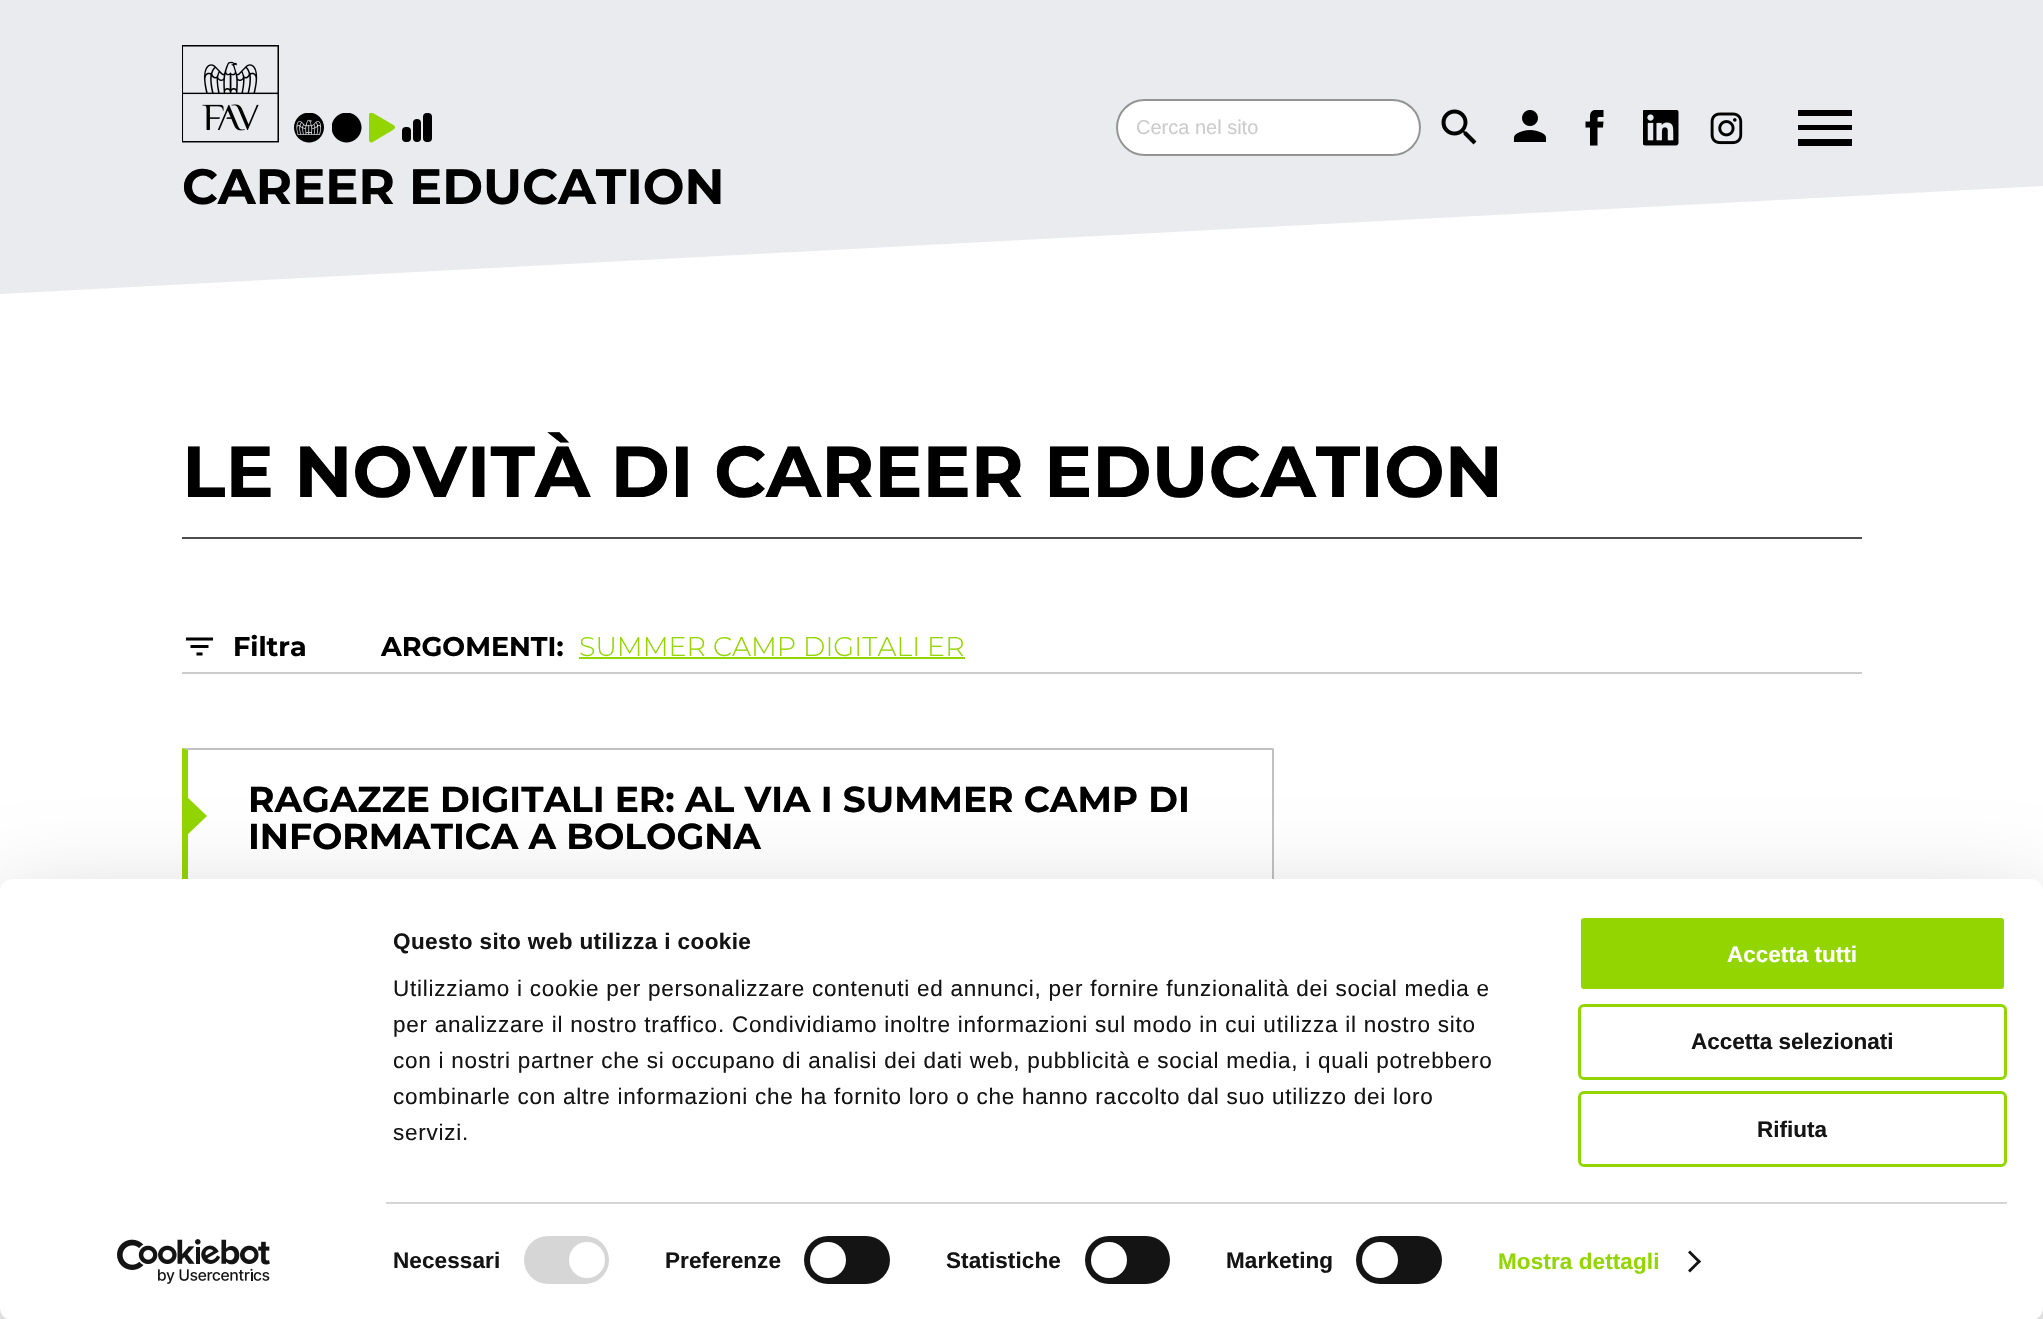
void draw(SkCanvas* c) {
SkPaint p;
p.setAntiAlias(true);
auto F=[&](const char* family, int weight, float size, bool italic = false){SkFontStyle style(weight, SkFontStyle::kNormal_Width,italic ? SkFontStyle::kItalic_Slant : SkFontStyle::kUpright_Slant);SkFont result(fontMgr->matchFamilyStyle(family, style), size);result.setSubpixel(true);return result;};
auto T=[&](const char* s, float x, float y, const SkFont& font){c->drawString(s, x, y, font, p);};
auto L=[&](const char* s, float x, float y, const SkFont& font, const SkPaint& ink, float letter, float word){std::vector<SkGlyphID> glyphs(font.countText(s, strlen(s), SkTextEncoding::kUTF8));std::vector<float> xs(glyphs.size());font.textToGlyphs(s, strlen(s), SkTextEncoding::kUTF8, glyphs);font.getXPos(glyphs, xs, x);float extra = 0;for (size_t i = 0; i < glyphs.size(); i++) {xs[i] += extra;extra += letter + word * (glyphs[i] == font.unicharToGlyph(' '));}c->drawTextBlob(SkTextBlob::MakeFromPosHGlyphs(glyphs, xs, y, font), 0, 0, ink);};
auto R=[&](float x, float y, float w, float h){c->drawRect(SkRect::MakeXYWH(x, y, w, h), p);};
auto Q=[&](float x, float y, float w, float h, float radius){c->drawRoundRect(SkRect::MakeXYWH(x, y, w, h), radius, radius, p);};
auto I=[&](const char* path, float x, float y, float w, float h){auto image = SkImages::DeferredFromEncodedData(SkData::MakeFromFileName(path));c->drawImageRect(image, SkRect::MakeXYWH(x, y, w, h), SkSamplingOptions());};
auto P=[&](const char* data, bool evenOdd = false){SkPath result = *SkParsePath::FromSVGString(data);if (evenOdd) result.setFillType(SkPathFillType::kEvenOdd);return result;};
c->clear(0xffffffff);
p.setColor(0xffeaebef);
R(0,0,1022,54);
c->drawPath(P("M0 54l2043-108v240l-2043 108z"),p);
p.setColor(0xffffffff);
Q(1116,99,305,57,28.5);
p.setStroke(true);
p.setStrokeWidth(2);
p.setColor(0xe3878787);
c->drawRoundRect(SkRect::MakeXYWH(1117,100,303,55),27.5,27.5,p);
auto f1 = F("Liberation Sans",400,20);
p.setStroke(false);
p.setColor(0xffcccccc);
T("Cerca nel sito",1136,134,f1);
I("1.png",1441,109,36,36);
I("2.png",1513,110,34,32);
I("3.png",1585,110,19,36);
I("4.png",1643,110,36,36);
I("5.png",1710,112,33,33);
p.setColor(0xff000000);
c->drawPath(P("M1798 110h54v6h-54zm0 20v-5h54v5zm0 16v-7h54v7z"),p);
I("6.png",182,45,97,98);
I("7.png",294,113,30,30);
I("8.png",332,113,30,30);
I("9.png",369,113,26,30);
Q(402,127,9,15,4);
Q(413,119,8,23,4);
Q(423,113,9,29,4);
auto f2 = F("Montserrat",700,49.5);
T("CAREER EDUCATION",182,204,f2);
p.setColor(0xff4d4d4d);
R(182,537,1680,2);
auto f3 = F("Montserrat",700,72);
p.setColor(0xff000000);
T("LE NOVITÀ DI CAREER EDUCATION",182,497,f3);
p.setColor(0xffcccccc);
R(182,672,1680,2);
I("10.png",186,637,27,19);
auto f4 = F("Montserrat",700,27);
p.setColor(0xff000000);
T("Filtra",233,656,f4);
T("ARGOMENTI:",381,656,f4);
auto f5 = F("Montserrat",300,27);
p.setColor(0xff93d500);
T("SUMMER CAMP DIGITALI ER",579,656,f5);
R(579,657,386,2);
p.setColor(0xffc1c1c1);
c->drawPath(P("M182 748h1092l-2 2h-1084z"),p);
p.setColor(0xff93d500);
c->drawPath(P("M182 1046v-298l6 2v294z"),p);
p.setColor(0xff92d500);
c->drawPath(P("M184 838v-44l23 22z"),p);
p.setColor(0xffc1c1c1);
R(1272,749,2,130);
auto f6 = F("Montserrat",700,36);
p.setColor(0xff000000);
T("RAGAZZE DIGITALI ER: AL VIA I SUMMER CAMP DI",248,812,f6);
T("INFORMATICA A BOLOGNA",248,849,f6);
p.setColor(0x4d000000);
p.setMaskFilter(SkMaskFilter::MakeBlur(kNormal_SkBlurStyle, 52.5));
c->drawRoundRect(SkRect::MakeXYWH(0,924,2043,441),12,12,p);
p.setMaskFilter(nullptr);
p.setColor(0xffffffff);
Q(0,879,2043,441,12);
auto f7 = F("Liberation Sans",700,22.5);
p.setColor(0xff141414);
L("Questo sito web utilizza i cookie",393,949,f7,p,.4,0);
auto f8 = F("Liberation Sans",400,22.5);
L("Utilizziamo i cookie per personalizzare contenuti ed annunci, per fornire funzionalità dei social media e",393,996,f8,p,.75,0);
L("per analizzare il nostro traffico. Condividiamo inoltre informazioni sul modo in cui utilizza il nostro sito",393,1032,f8,p,.75,0);
L("con i nostri partner che si occupano di analisi dei dati web, pubblicità e social media, i quali potrebbero",393,1068,f8,p,.75,0);
L("combinarle con altre informazioni che ha fornito loro o che hanno raccolto dal suo utilizzo dei loro",393,1104,f8,p,.75,0);
L("servizi.",393,1140,f8,p,.75,0);
p.setColor(0xffd6d6d6);
R(386,1202,1621,2);
p.setColor(0xff141414);
L("Necessari",393,1268,f7,p,.1,0);
p.setColor(0xffd6d6d6);
Q(524,1236,85,48,24);
p.setColor(0xffffffff);
c->drawCircle(587,1260,18,p);
p.setColor(0xff141414);
L("Preferenze",665,1268,f7,p,.1,0);
Q(804,1236,86,48,24);
p.setColor(0xffffffff);
c->drawCircle(828,1260,18,p);
p.setColor(0xff141414);
L("Statistiche",946,1268,f7,p,.1,0);
Q(1085,1236,85,48,24);
p.setColor(0xffffffff);
c->drawCircle(1109,1260,18,p);
p.setColor(0xff141414);
L("Marketing",1226,1268,f7,p,.1,0);
Q(1356,1236,86,48,24);
p.setColor(0xffffffff);
c->drawCircle(1380,1260,18,p);
p.setColor(0xff93d500);
L("Mostra dettagli",1498,1269,f7,p,.1,0);
p.setColor(0xff141414);
c->drawPath(P("M1690 1250.5l11 11l-2 2l-11-11z"),p);
c->drawPath(P("M1699 1259.5l2 2l-11 11l-2-2z"),p);
p.setColor(0xff93d500);
c->drawRoundRect(SkRect::MakeXYWH(1579.5,916.5,426,74),4.5,4.5,p);
p.setStroke(true);
p.setStrokeWidth(3);
p.setColor(0xffffffff);
c->drawRoundRect(SkRect::MakeXYWH(1579.5,916.5,426,74),4.5,4.5,p);
p.setStroke(false);
T("Accetta tutti",1727,962,f7);
p.setStroke(true);
p.setColor(0xff93d500);
c->drawRoundRect(SkRect::MakeXYWH(1579.5,1005.5,426,73),4.5,4.5,p);
p.setStroke(false);
p.setColor(0xff141414);
T("Accetta selezionati",1691,1049,f7);
p.setStroke(true);
p.setColor(0xff93d500);
c->drawRoundRect(SkRect::MakeXYWH(1579.5,1092.5,426,73),4.5,4.5,p);
p.setStroke(false);
p.setColor(0xff141414);
T("Rifiuta",1757,1137,f7);
I("11.png",117,1239,153,45);
}
